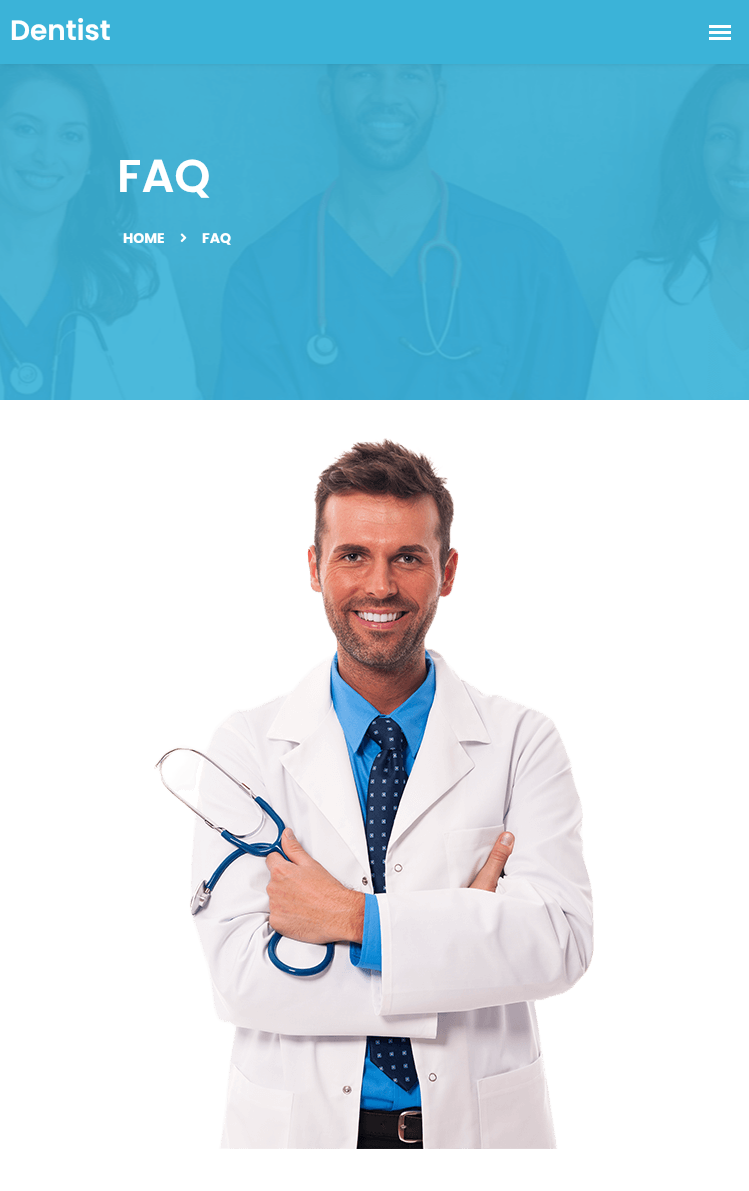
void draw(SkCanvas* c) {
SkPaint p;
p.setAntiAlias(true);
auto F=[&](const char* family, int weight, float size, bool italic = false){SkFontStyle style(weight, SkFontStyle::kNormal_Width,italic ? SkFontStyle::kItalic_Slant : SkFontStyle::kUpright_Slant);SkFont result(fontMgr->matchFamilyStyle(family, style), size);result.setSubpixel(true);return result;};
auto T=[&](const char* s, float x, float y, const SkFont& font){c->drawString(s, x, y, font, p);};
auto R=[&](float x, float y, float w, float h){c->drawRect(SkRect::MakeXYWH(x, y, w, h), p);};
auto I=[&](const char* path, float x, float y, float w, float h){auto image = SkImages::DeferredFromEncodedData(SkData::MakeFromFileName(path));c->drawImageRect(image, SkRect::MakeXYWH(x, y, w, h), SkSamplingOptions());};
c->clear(0xffffffff);
I("1.png",0,64,749,336);
p.setColor(0x1a000000);
p.setMaskFilter(SkMaskFilter::MakeBlur(kNormal_SkBlurStyle, 2.5));
c->drawRect(SkRect::MakeXYWH(2,4,745,60),p);
p.setMaskFilter(nullptr);
p.setColor(0xff3bb3d8);
R(0,0,749,64);
auto f1 = F("Poppins",600,28);
p.setColor(0xffffffff);
T("Dentist",10,40,f1);
R(709,25,22,3);
R(709,31,22,3);
R(709,37,22,3);
auto f2 = F("Poppins",600,46);
T("FAQ",117,192,f2);
auto f3 = F("Poppins",700,14);
T("HOME",123,243,f3);
I("2.png",180,233,7,10);
T("FAQ",202,243,f3);
I("3.png",154,438,440,711);
}
